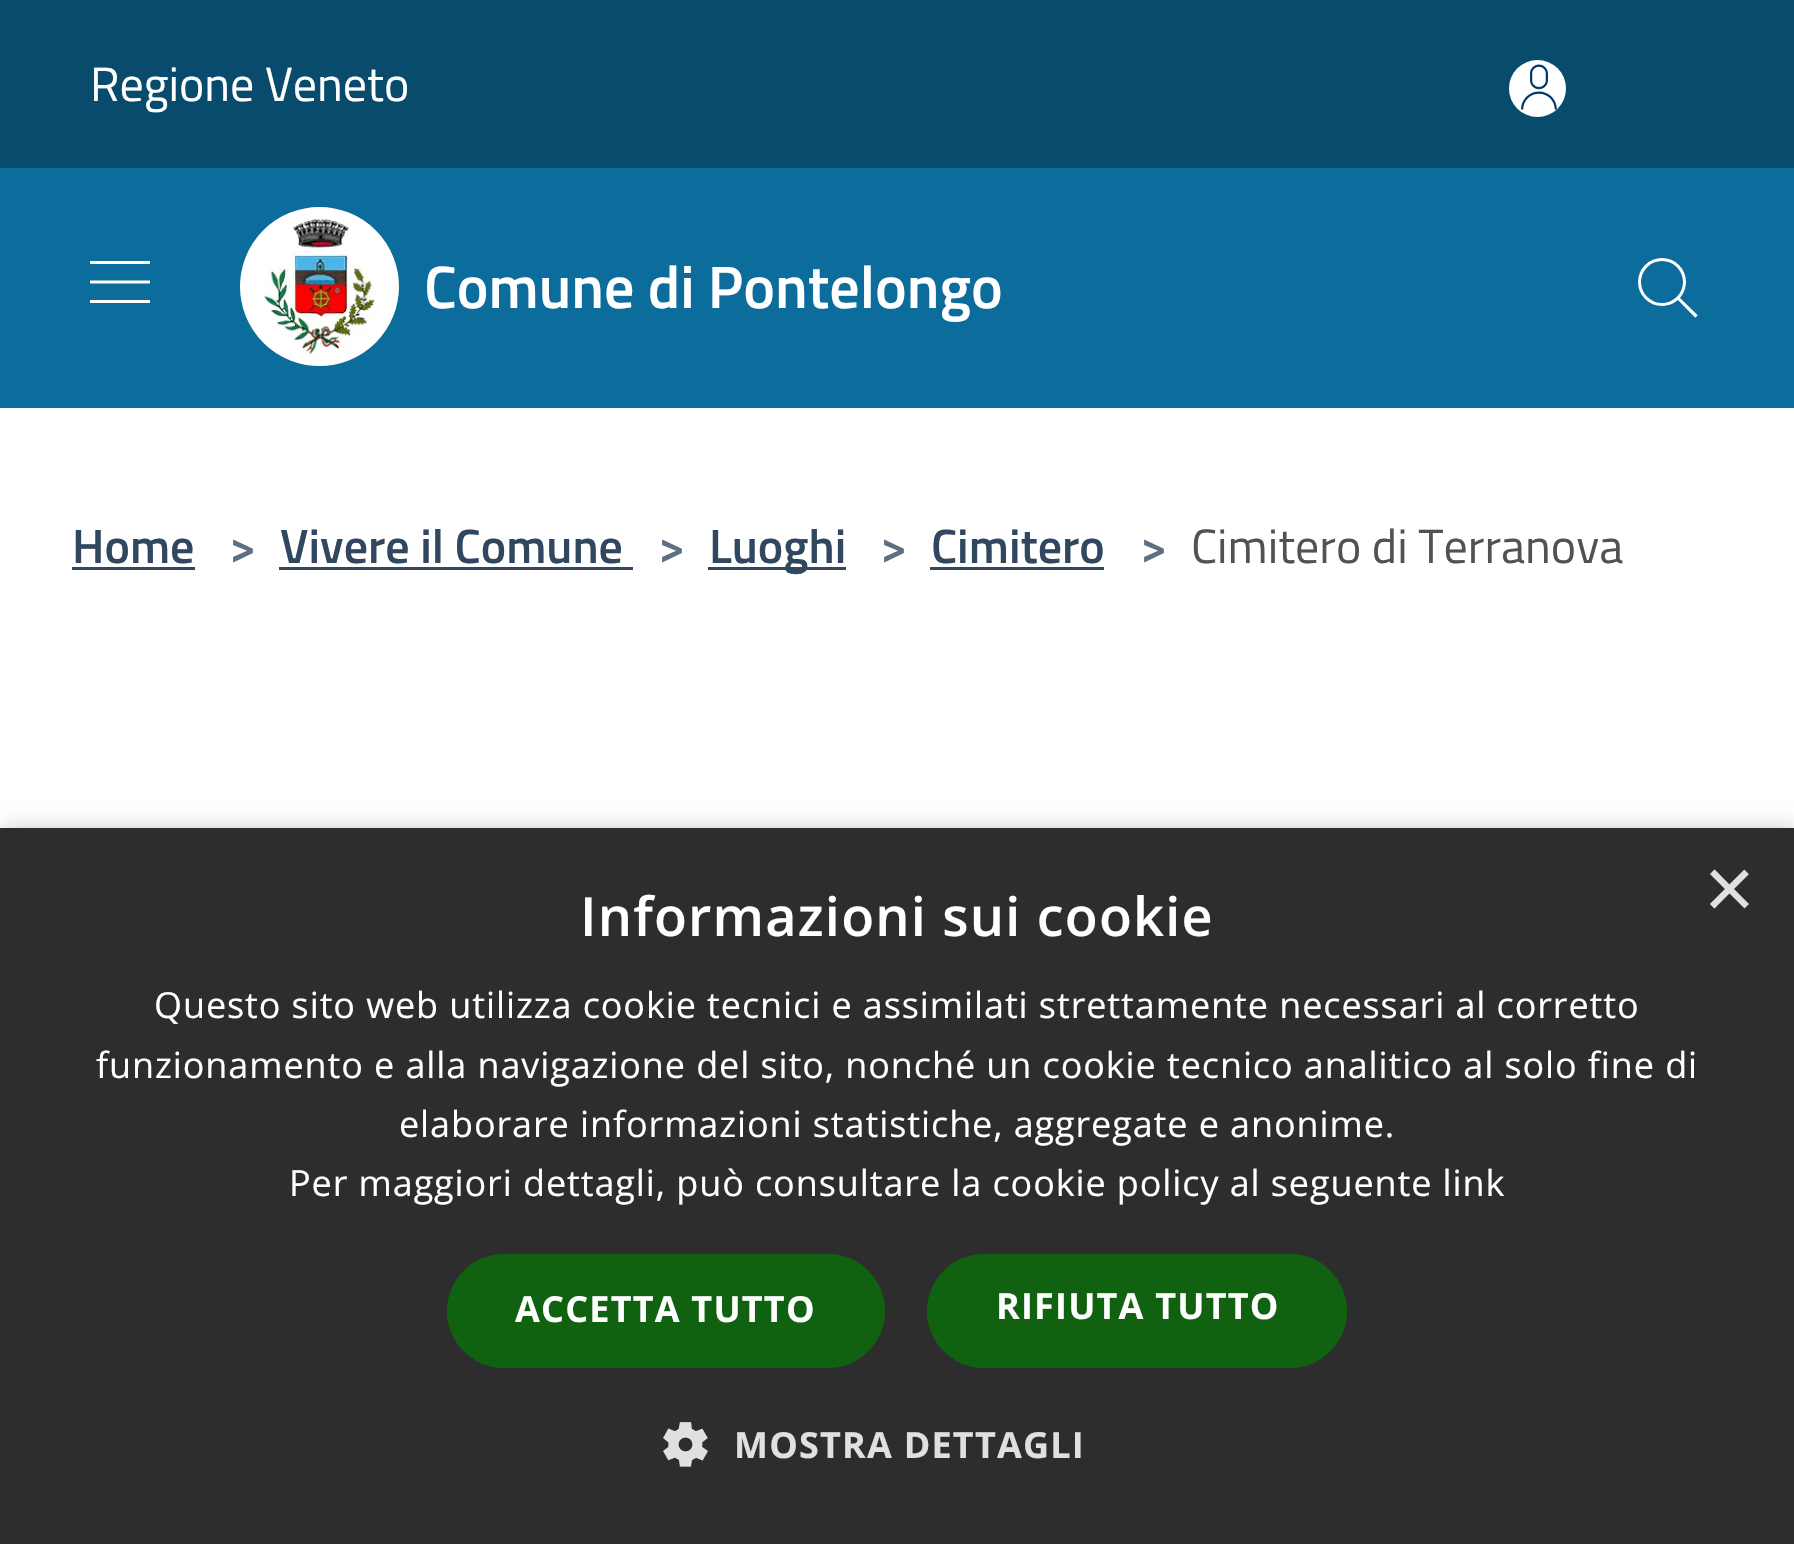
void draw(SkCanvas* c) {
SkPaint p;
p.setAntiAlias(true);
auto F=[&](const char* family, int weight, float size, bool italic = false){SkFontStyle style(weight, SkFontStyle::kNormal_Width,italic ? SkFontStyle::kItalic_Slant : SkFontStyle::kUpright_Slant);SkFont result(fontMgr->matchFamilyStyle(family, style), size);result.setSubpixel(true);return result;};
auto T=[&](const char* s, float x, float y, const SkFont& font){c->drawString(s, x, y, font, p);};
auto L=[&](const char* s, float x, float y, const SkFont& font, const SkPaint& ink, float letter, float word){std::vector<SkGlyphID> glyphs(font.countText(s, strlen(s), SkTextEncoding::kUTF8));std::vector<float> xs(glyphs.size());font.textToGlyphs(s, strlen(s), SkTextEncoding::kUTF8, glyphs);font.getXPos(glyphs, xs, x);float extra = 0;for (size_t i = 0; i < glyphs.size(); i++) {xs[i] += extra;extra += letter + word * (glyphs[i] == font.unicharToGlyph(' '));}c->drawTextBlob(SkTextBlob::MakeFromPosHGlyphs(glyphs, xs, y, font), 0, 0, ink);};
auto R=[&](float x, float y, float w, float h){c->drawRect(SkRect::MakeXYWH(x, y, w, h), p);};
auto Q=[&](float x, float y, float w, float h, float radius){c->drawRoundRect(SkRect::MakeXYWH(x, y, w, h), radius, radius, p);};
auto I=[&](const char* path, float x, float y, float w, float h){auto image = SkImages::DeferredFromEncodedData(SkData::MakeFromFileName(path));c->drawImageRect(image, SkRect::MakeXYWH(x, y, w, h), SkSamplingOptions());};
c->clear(0xffffffff);
p.setColor(0xff084b6d);
R(0,0,1794,168);
auto f1 = F("Titillium Web",400,48);
p.setColor(0xffffffff);
T("Regione Veneto",90,101,f1);
c->drawCircle(1537.5,88.5,28.5,p);
I("1.png",1521,64,36,46);
p.setColor(0xff0c6c9c);
R(0,168,1794,240);
I("2.png",90,261,60,42);
p.setColor(0xffffffff);
c->drawCircle(319.5,286.5,78,p);
p.setStroke(true);
p.setStrokeWidth(3);
c->drawCircle(319.5,286.5,78,p);
I("3.png",264,218,114,139);
auto f2 = F("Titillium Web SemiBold",600,60);
p.setStroke(false);
T("Comune di Pontelongo",424,308,f2);
I("4.png",1638,258,60,60);
auto f3 = F("Titillium Web SemiBold",600,48);
p.setColor(0xff30475f);
T("Home",72,563,f3);
R(72,567,123,3);
p.setColor(0xff5d7083);
T(">",229,563,f3);
p.setColor(0xff30475f);
T("Vivere il Comune",280,563,f3);
R(279,567,354,3);
p.setColor(0xff5d7083);
T(">",658,563,f3);
p.setColor(0xff30475f);
R(708,567,138,3);
T("Luoghi",709,563,f3);
p.setColor(0xff5d7083);
T(">",880,563,f3);
p.setColor(0xff30475f);
T("Cimitero",931,563,f3);
R(930,567,174,3);
p.setColor(0xff5d7083);
T(">",1140,563,f3);
p.setColor(0xff525252);
T("Cimitero di Terranova",1191,563,f1);
p.setColor(0x59000000);
p.setMaskFilter(SkMaskFilter::MakeBlur(kNormal_SkBlurStyle, 12));
c->drawRect(SkRect::MakeXYWH(3,834,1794,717),p);
p.setMaskFilter(nullptr);
p.setColor(0xff2d2d2d);
R(0,828,1794,716);
auto f4 = F("Liberation Sans",400,87);
p.setColor(0xffe0e0e0);
T("×",1704,918,f4);
auto f5 = F("Open Sans",600,54);
p.setColor(0xffffffff);
L("Informazioni sui cookie",580,936,f5,p,1.2,0);
auto f6 = F("Open Sans",400,36);
L("Questo sito web utilizza cookie tecnici e assimilati strettamente necessari al corretto",154,1018,f6,p,.9,0);
L("funzionamento e alla navigazione del sito, nonché un cookie tecnico analitico al solo fine di",96,1078,f6,p,.9,0);
L("elaborare informazioni statistiche, aggregate e anonime.",399,1137,f6,p,.9,0);
L("Per maggiori dettagli, può consultare la cookie policy al seguente link",289,1196,f6,p,.9,0);
p.setColor(0xff106110);
Q(447,1254,438,114,57);
auto f7 = F("Open Sans",700,36);
p.setColor(0xffffffff);
L("ACCETTA TUTTO",515,1322,f7,p,1.2,0);
p.setColor(0xff106110);
Q(927,1254,420,114,57);
p.setColor(0xffffffff);
L("RIFIUTA TUTTO",996,1319,f7,p,1.2,0);
I("5.png",663,1422,45,45);
p.setColor(0xffe0e0e0);
L("MOSTRA DETTAGLI",734,1458,f7,p,1.2,0);
}
